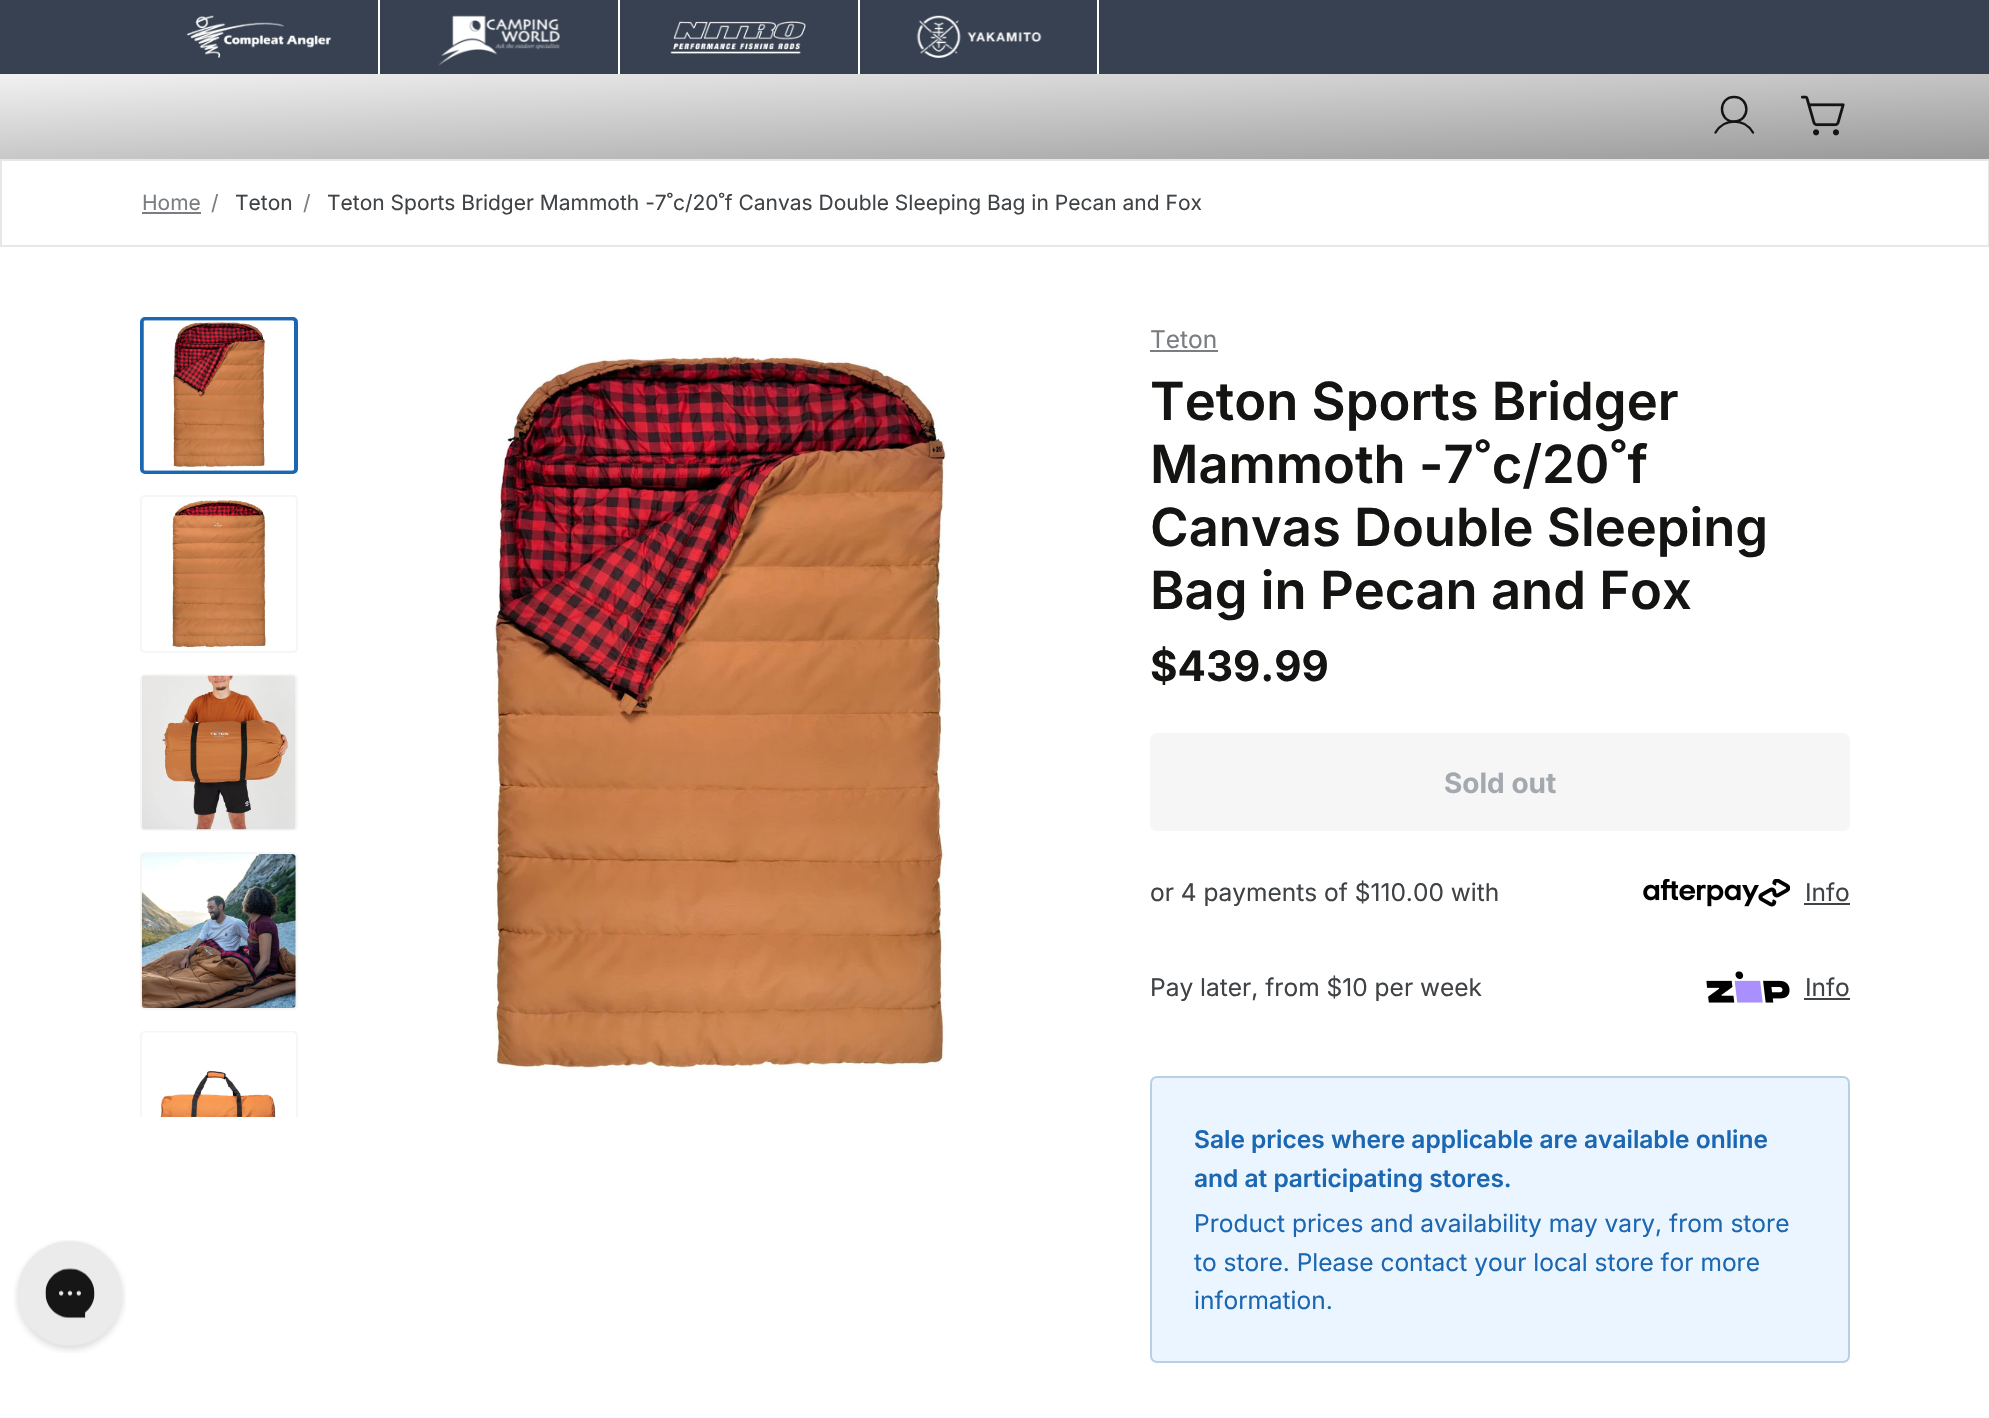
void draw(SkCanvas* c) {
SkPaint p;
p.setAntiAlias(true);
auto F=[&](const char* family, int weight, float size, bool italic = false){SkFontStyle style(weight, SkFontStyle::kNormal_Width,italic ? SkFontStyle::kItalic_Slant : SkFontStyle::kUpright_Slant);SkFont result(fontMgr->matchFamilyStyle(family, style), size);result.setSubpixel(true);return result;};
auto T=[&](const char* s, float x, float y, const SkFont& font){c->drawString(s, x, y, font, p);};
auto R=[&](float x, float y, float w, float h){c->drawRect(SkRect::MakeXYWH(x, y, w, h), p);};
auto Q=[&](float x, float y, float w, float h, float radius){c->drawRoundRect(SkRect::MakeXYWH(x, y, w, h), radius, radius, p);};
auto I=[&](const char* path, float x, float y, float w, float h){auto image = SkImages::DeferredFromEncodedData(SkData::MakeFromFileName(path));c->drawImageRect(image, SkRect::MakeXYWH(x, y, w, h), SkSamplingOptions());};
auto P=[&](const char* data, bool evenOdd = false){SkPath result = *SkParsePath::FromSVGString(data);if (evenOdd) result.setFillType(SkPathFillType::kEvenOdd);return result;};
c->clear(0xffffffff);
I("1.png",14,1240,112,113);
p.setColor(0xff374151);
R(0,0,1989,74);
p.setColor(0xffffffff);
R(378,0,2,74);
I("2.png",186,15,146,43);
R(618,0,2,74);
I("3.png",438,15,122,51);
R(858,0,2,74);
I("4.png",670,21,136,33);
R(1097,0,2,74);
I("5.png",916,15,126,43);
{
const SkColor colors[] = {0xfff0f0f0,0xff9b9b9b};
const float stops[] = {0,1};
const SkPoint ends[] = {{991,31}, {999,202}};
p.setShader(SkGradientShader::MakeLinear(ends, colors, stops, 2, SkTileMode::kClamp));
p.setAlpha(255);
}
R(0,74,1989,85);
p.setStroke(true);
p.setStrokeWidth(2.4);
p.setShader(nullptr);
p.setColor(0xff141413);
c->drawPath(P("M1734 121.5c16.5 0 16.5-24.5 0-24.5c-16 0-16 24.5 0 24.5z"),p);
p.setStrokeCap(SkPaint::kRound_Cap);
p.setStrokeJoin(SkPaint::kRound_Join);
c->drawPath(P("M1715.5 132.5c8.5-14.5 29-14.5 37.5 0"),p);
I("6.png",1801,95,44,41);
p.setStrokeWidth(2);
p.setStrokeCap(SkPaint::kButt_Cap);
p.setStrokeJoin(SkPaint::kMiter_Join);
p.setColor(0xffe7e7e7);
c->drawRect(SkRect::MakeXYWH(1,160,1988,86),p);
auto f1 = F("Inter",400,21);
p.setStroke(false);
p.setColor(0xff7a7d81);
T("Home",142,210,f1);
R(142,212,59,2);
T("/",211,210,f1);
p.setColor(0xff404346);
T("Teton",235,210,f1);
p.setColor(0xff7a7d81);
T("/",303,210,f1);
p.setColor(0xff404346);
T("Teton Sports Bridger Mammoth -7˚c/20˚f Canvas Double Sleeping Bag in Pecan and Fox",327,210,f1);
p.setStroke(true);
p.setStrokeWidth(4);
p.setColor(0xff1b67b1);
c->drawRoundRect(SkRect::MakeXYWH(142,319,154,153),3,3,p);
I("7.png",143,320,151,151);
p.setStrokeWidth(2);
p.setColor(0xfff6f6f6);
c->drawRoundRect(SkRect::MakeXYWH(141,496,156,156),4,4,p);
I("8.png",172,500,94,148);
c->drawRoundRect(SkRect::MakeXYWH(141,675,156,155),4,4,p);
I("9.png",142,675,154,155);
c->drawRoundRect(SkRect::MakeXYWH(141,853,156,156),4,4,p);
I("10.png",141,854,155,154);
c->save();
c->clipRect(SkRect::MakeXYWH(140,317,158,800));
c->drawRoundRect(SkRect::MakeXYWH(141,1032,156,155),4,4,p);
c->restore();
I("11.png",143,1032,150,85);
I("12.png",492,353,455,717);
auto f2 = F("Inter",400,24.5);
p.setStroke(false);
p.setColor(0xff7a7d81);
T("Teton",1150,348,f2);
R(1150,350,68,2);
auto f3 = F("Inter",600,52.5);
p.setColor(0xff141413);
T("Teton Sports Bridger",1150,420,f3);
T("Mammoth -7˚c/20˚f",1150,483,f3);
T("Canvas Double Sleeping",1150,546,f3);
T("Bag in Pecan and Fox",1150,609,f3);
auto f4 = F("Inter",700,42);
T("$439.99",1150,681,f4);
p.setColor(0xfff6f6f6);
Q(1150,733,700,98,7);
auto f5 = F("Inter",700,28);
p.setColor(0xffa4a8af);
T("Sold out",1444,793,f5);
p.setColor(0xff404346);
T("or 4 payments of $110.00 with",1150,901,f2);
I("13.png",1643,879,147,28);
T("Info",1805,901,f2);
R(1804,903,46,2);
T("Pay later, from $10 per week",1150,996,f2);
I("14.png",1706,971,84,32);
T("Info",1805,996,f2);
R(1804,998,46,2);
p.setColor(0xffebf5ff);
c->drawRoundRect(SkRect::MakeXYWH(1151,1077,698,285),6,6,p);
p.setStroke(true);
p.setColor(0xffb9cfe4);
c->drawRoundRect(SkRect::MakeXYWH(1151,1077,698,285),6,6,p);
auto f6 = F("Inter",600,24.5);
p.setStroke(false);
p.setColor(0xff1b67b1);
T("Sale prices where applicable are available online",1194,1148,f6);
T("and at participating stores.",1194,1187,f6);
T("Product prices and availability may vary, from store",1194,1232,f2);
T("to store. Please contact your local store for more",1194,1271,f2);
T("information.",1194,1309,f2);
}
